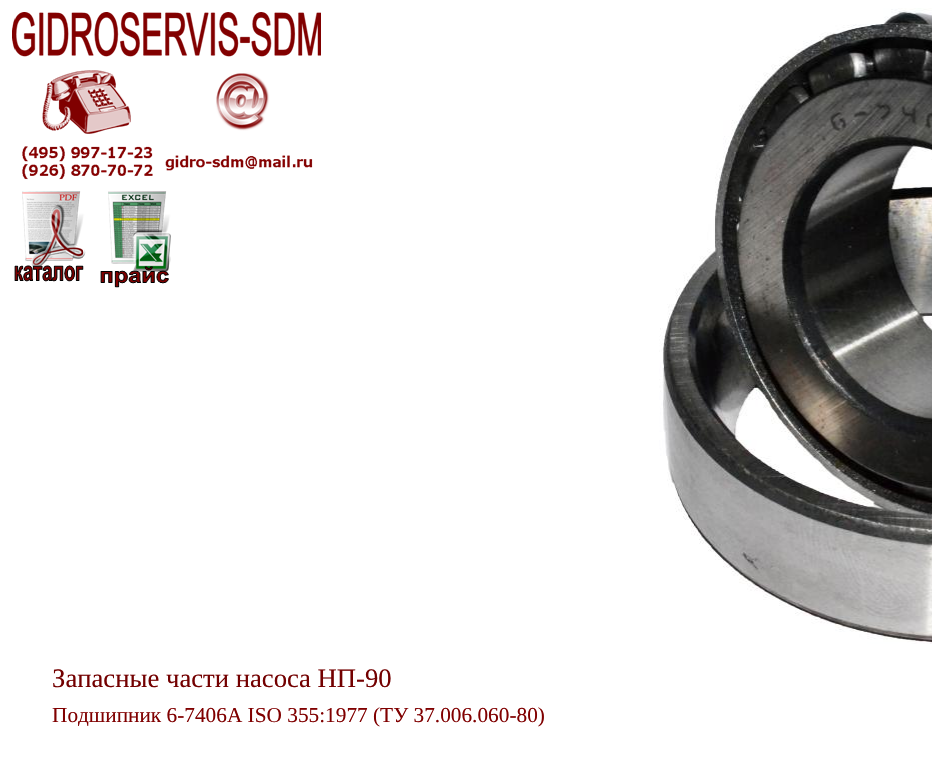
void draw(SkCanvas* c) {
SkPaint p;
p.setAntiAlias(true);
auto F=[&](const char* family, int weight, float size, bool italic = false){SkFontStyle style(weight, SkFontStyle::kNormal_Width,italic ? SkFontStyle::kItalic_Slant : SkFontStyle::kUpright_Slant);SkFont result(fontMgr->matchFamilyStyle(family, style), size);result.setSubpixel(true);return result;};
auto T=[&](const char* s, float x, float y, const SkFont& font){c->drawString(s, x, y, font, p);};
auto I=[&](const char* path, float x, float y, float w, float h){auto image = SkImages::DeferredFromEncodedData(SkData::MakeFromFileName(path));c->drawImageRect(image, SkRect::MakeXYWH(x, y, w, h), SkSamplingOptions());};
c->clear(0xffffffff);
I("1.png",12,12,309,168);
I("2.png",659,8,273,636);
I("3.png",14,191,157,97);
auto f1 = F("Liberation Serif",400,26.7);
p.setColor(0xff730000);
T("Запасные части насоса НП-90",52,687,f1);
auto f2 = F("Liberation Serif",400,21.3);
p.setColor(0xff800000);
T("Подшипник 6-7406А ISO 355:1977 (ТУ 37.006.060-80)",52,722,f2);
}
